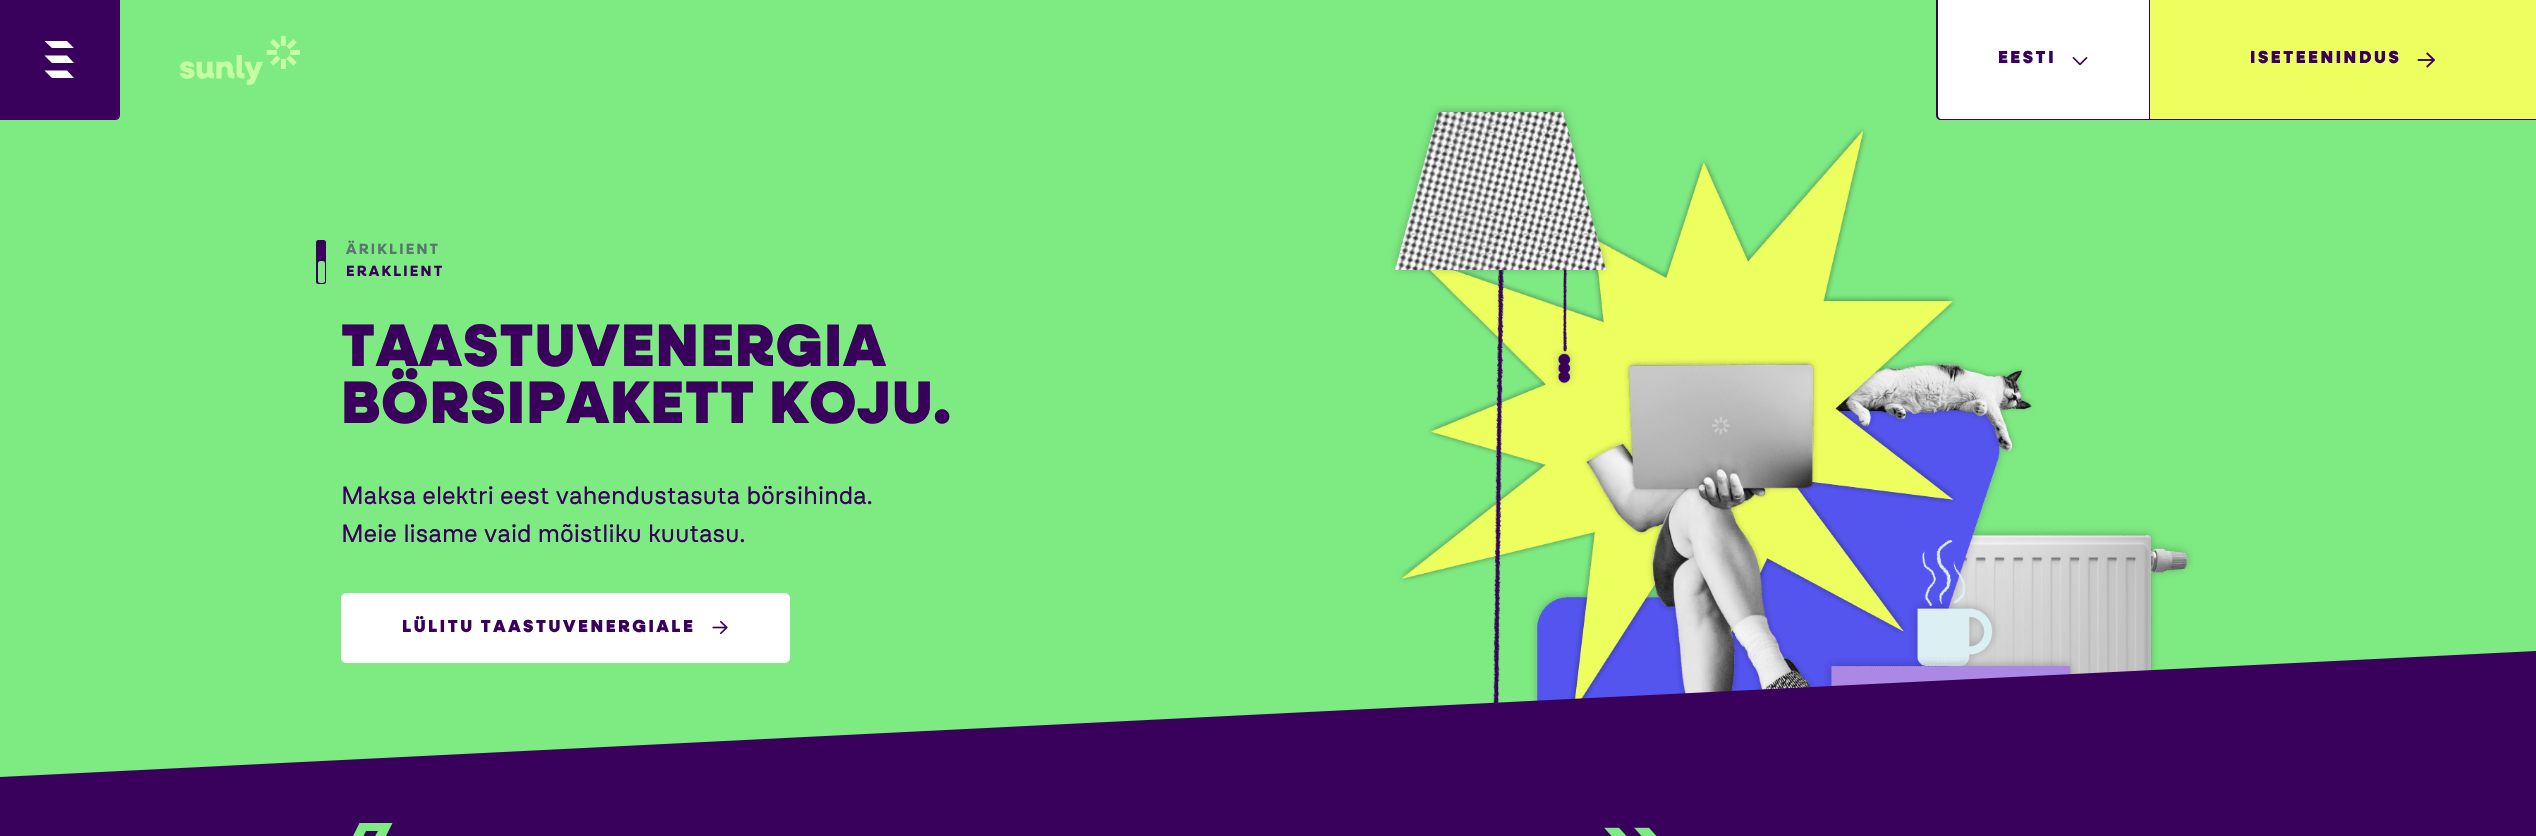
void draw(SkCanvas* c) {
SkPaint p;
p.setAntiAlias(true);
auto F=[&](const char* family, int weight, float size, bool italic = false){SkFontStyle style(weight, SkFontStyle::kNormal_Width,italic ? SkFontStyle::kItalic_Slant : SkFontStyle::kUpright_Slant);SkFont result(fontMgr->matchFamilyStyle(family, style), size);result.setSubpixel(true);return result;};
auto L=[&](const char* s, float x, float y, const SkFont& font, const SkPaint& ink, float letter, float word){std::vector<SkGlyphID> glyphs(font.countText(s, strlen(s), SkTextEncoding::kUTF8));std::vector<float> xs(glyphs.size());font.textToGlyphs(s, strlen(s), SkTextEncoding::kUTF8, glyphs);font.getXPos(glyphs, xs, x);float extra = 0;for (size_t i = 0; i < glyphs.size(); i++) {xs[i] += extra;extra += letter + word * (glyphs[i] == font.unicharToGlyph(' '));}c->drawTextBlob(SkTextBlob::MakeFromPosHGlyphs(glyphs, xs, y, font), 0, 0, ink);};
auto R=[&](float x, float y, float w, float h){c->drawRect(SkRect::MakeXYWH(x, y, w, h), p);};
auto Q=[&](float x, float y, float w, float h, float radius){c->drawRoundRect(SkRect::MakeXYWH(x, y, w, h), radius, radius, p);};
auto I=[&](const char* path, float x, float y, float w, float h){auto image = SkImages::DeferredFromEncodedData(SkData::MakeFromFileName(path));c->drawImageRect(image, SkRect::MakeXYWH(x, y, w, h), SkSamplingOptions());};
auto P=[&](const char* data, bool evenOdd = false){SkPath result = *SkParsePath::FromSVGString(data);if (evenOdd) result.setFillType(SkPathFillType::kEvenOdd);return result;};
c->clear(0xff7dea82);
p.setColor(0xff39005c);
c->drawPath(P("M0 0h119v115c0 2-2 4-4 4h-115z"),p);
c->drawPath(P("M0 0h120v115c0 3-2 5-5 5h-115zm0 0h119v115c0 2-2 4-4 4h-115z",true),p);
p.setColor(0xffffffff);
c->drawPath(P("M74 78h-22l-7.5-7.5h22.5zm0-15h-22l-7.5-7.5h22.5zm-22-15h22l-7-7h-22.5z"),p);
I("1.png",180,35,120,50);
I("5.png",1391,105,802,598);
c->drawPath(P("M1938 0h211v119h-207c-2 0-4-2-4-4z"),p);
p.setColor(0xff39005c);
c->drawPath(P("M1936 0h213v120h-208c-3 0-5-2-5-5zm2 0h211v119h-208c-2 0-3-2-3-4z",true),p);
auto f1 = F("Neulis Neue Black",900,17.5);
L("EESTI",1998,63,f1,p,2.6,0);
I("2.png",2072,57,16,9);
p.setColor(0xffecff5e);
R(2150,0,386,119);
p.setColor(0xff39005c);
R(2149,119,387,1);
R(2149,0,1,120);
L("ISETEENINDUS",2250,63,f1,p,2.6,0);
I("3.png",2417,52,18,16);
Q(316,240,10,44,2.5);
p.setColor(0xff7dea82);
Q(318,261,7,22,2.5);
auto f2 = F("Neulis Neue",700,15);
p.setColor(0xff5b756f);
L("ÄRIKLIENT",346,254,f2,p,2.25,0);
p.setColor(0xff39005c);
L("ERAKLIENT",346,276,f2,p,2.25,0);
auto f3 = F("Neulis Neue Black",900,60);
L("TAASTUVENERGIA",341,366,f3,p,1.25,0);
L("BÖRSIPAKETT KOJU.",341,423,f3,p,1.25,0);
auto f4 = F("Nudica",400,25);
L("Maksa elektri eest vahendustasuta börsihinda.",341,504,f4,p,-.25,0);
L("Meie lisame vaid mõistliku kuutasu.",341,542,f4,p,-.25,0);
p.setColor(0xffffffff);
c->drawRoundRect(SkRect::MakeXYWH(341.5,593.5,448,69),4.5,4.5,p);
p.setStroke(true);
p.setStrokeWidth(1);
c->drawRoundRect(SkRect::MakeXYWH(341.5,593.5,448,69),4.5,4.5,p);
p.setStroke(false);
p.setColor(0xff39005c);
L("LÜLITU TAASTUVENERGIALE",402,632,f1,p,2.6,0);
I("4.png",712,621,16,13);
R(0,784,2536,52);
c->save();
c->clipRect(SkRect::MakeXYWH(0,651,2536,133));
c->drawPath(P("M2536 651v134h-2536v-8z"),p);
c->restore();
c->save();
c->clipRect(SkRect::MakeXYWH(341,823,60,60));
p.setColor(0xff7dea82);
c->drawPath(P("M386 836h15l-42 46h-15l9-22h-12l19-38h33zm-27 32l22-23h-11l8-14h-12l-10 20h11z",true),p);
c->restore();
I("6.png",1604,827,53,9);
}
